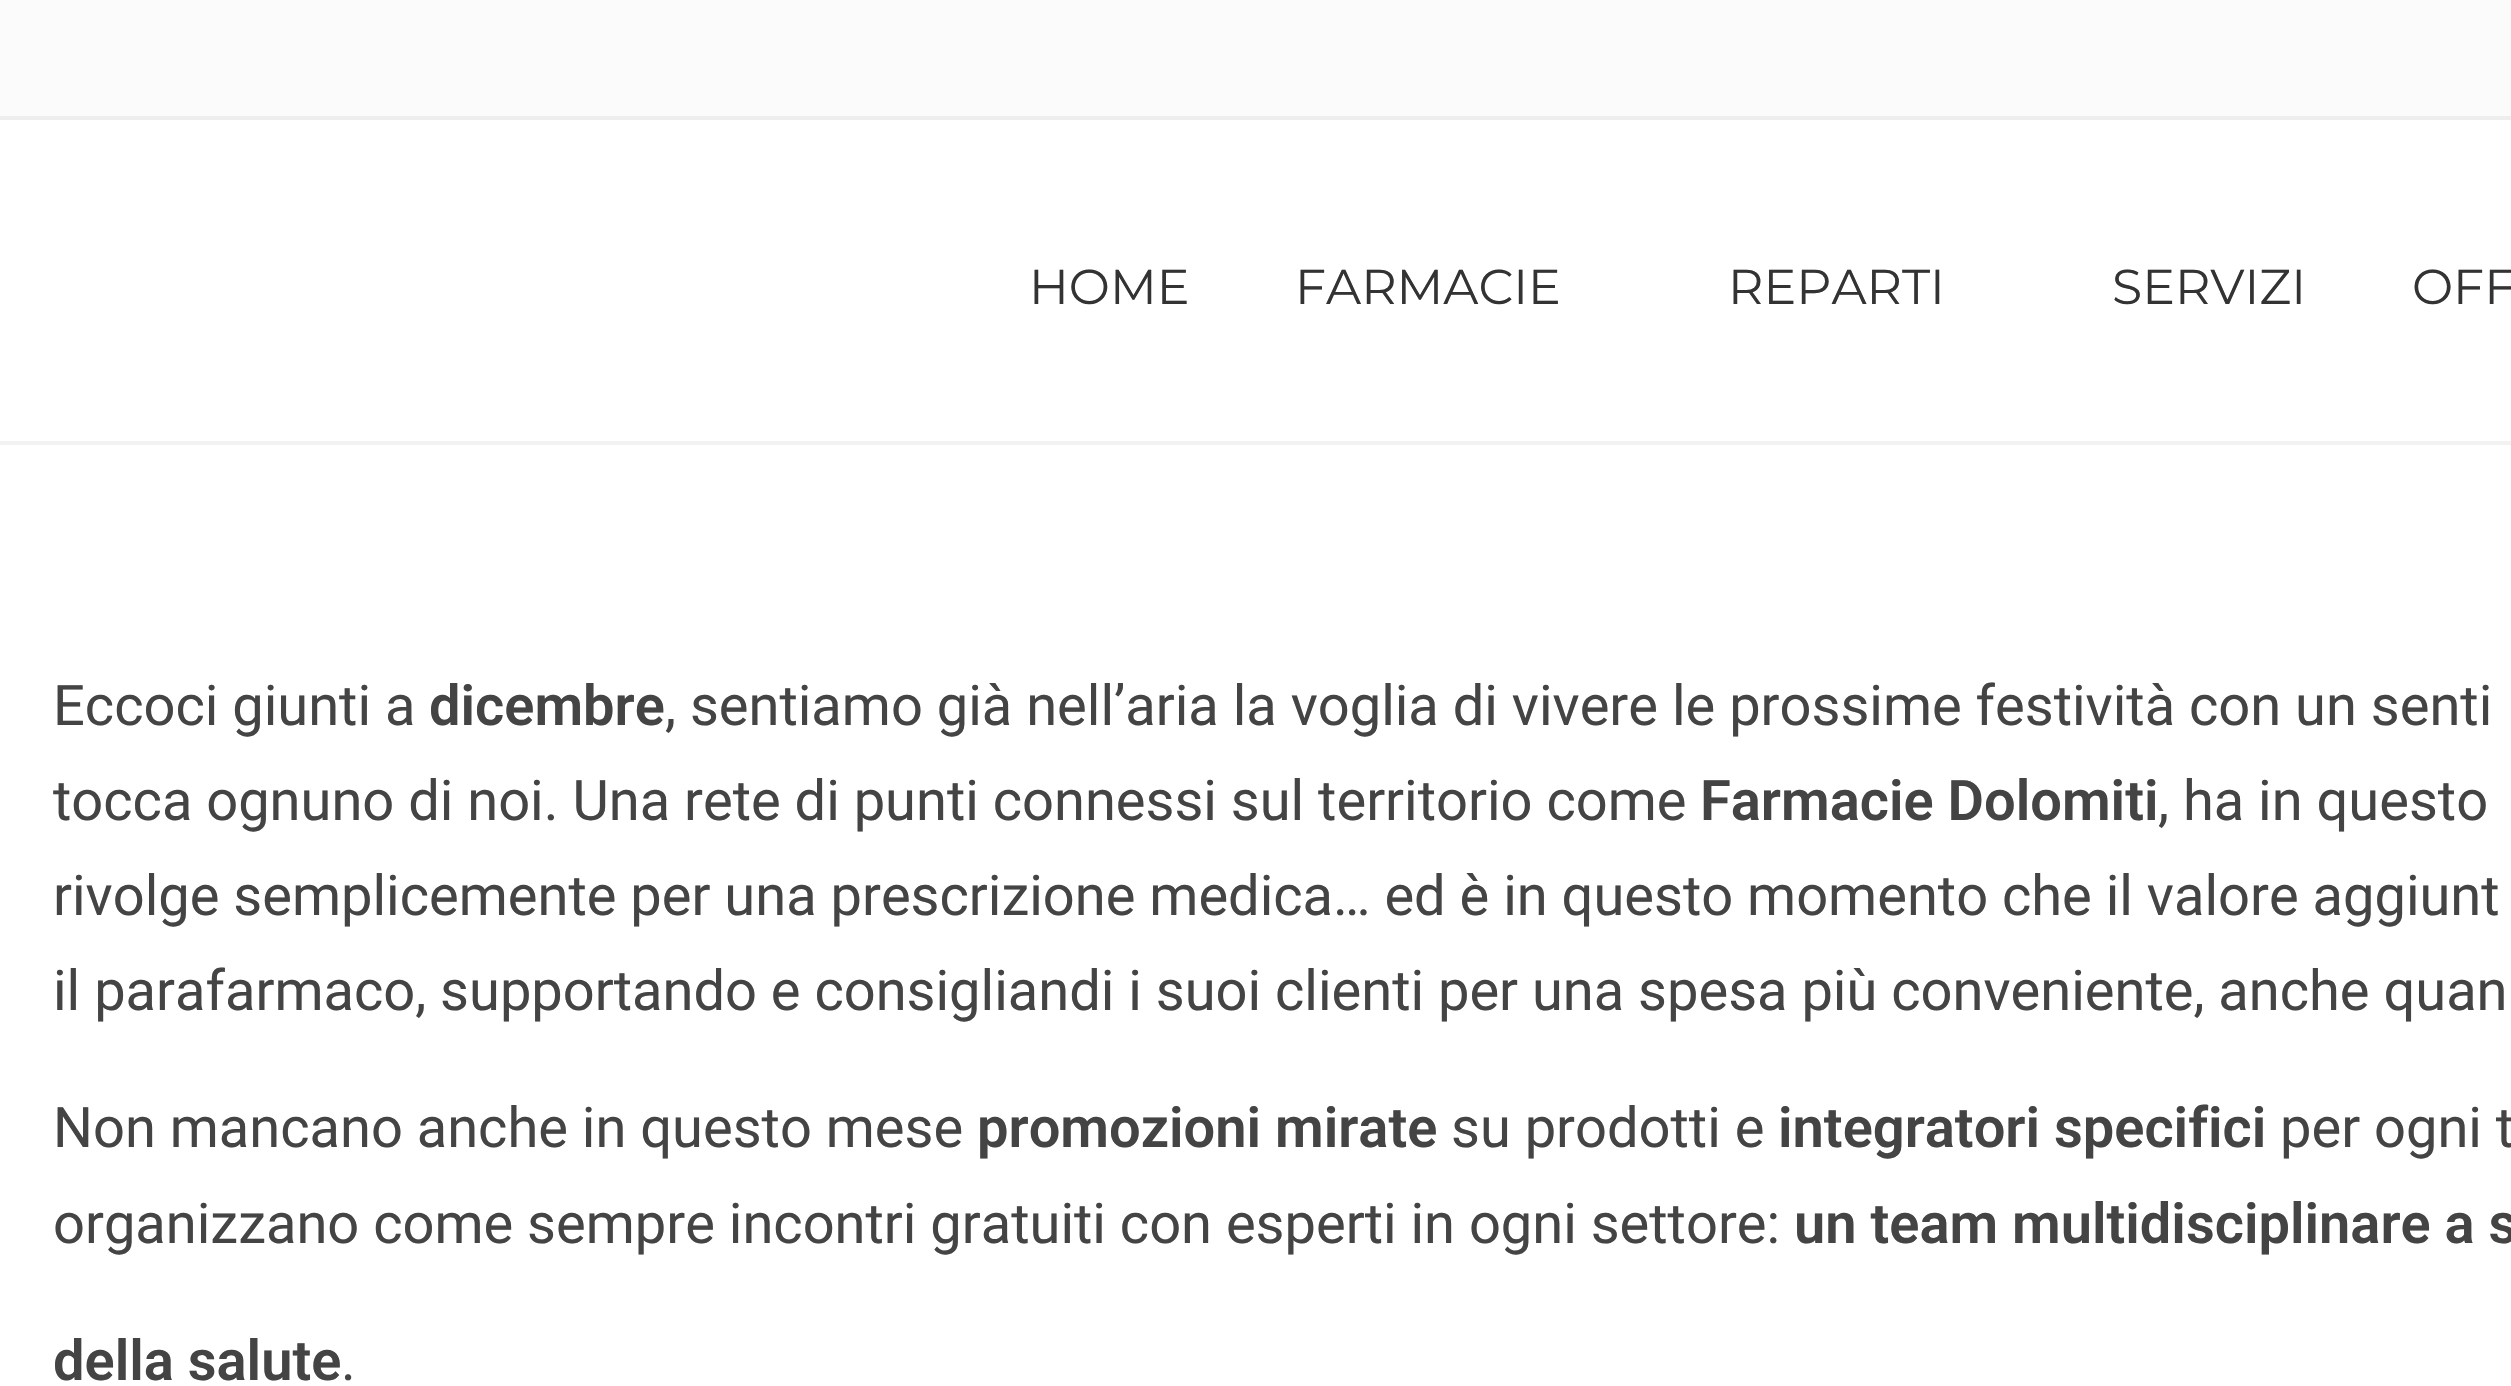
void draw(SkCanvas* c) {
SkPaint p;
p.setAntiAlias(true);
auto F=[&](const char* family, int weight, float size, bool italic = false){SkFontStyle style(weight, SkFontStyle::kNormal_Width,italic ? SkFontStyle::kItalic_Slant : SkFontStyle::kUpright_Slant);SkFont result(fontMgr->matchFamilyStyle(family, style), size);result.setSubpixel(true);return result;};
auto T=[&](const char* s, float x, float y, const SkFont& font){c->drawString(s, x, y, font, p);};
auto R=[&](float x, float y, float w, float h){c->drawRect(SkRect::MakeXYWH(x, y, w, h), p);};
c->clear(0xffffffff);
p.setStroke(true);
p.setStrokeWidth(4);
p.setColor(0x0d000000);
c->drawRect(SkRect::MakeXYWH(-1,-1,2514,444),p);
p.setStroke(false);
p.setColor(0xffffffff);
R(0,120,1,321);
p.setColor(0xfffbfbfb);
R(0,0,2511,116);
p.setColor(0xffeeeeee);
R(0,116,2511,4);
auto f1 = F("Montserrat",400,49);
p.setColor(0xff333333);
T("HOME",1029,304,f1);
T("FARMACIE",1295,304,f1);
T("REPARTI",1728,304,f1);
T("SERVIZI",2112,304,f1);
T("OFF",2412,304,f1);
auto f2 = F("Roboto",400,56);
p.setColor(0xff444444);
T("Eccoci giunti a",53,725,f2);
auto f3 = F("Roboto",600,56);
T("dicembre",429,725,f3);
T(", sentiamo già nell’aria la voglia di vivere le prossime festività con un senti",665,725,f2);
T("tocca ognuno di noi. Una rete di punti connessi sul territorio come",53,820,f2);
T("Farmacie Dolomiti",1700,820,f3);
T(", ha in questo",2158,820,f2);
T("rivolge semplicemente per una prescrizione medica… ed è in questo momento che il valore aggiunt",53,915,f2);
T("il parafarmaco, supportando e consigliandi i suoi clienti per una spesa più conveniente, anche quan",53,1010,f2);
T("Non mancano anche in questo mese",53,1147,f2);
T("promozioni mirate",977,1147,f3);
T("su prodotti e",1451,1147,f2);
T("integratori specifici",1778,1147,f3);
T("per ogni t",2280,1147,f2);
T("organizzano come sempre incontri gratuiti con esperti in ogni settore:",53,1243,f2);
T("un team multidisciplinare a s",1794,1243,f3);
T("della salute",53,1380,f3);
T(".",341,1380,f2);
}
